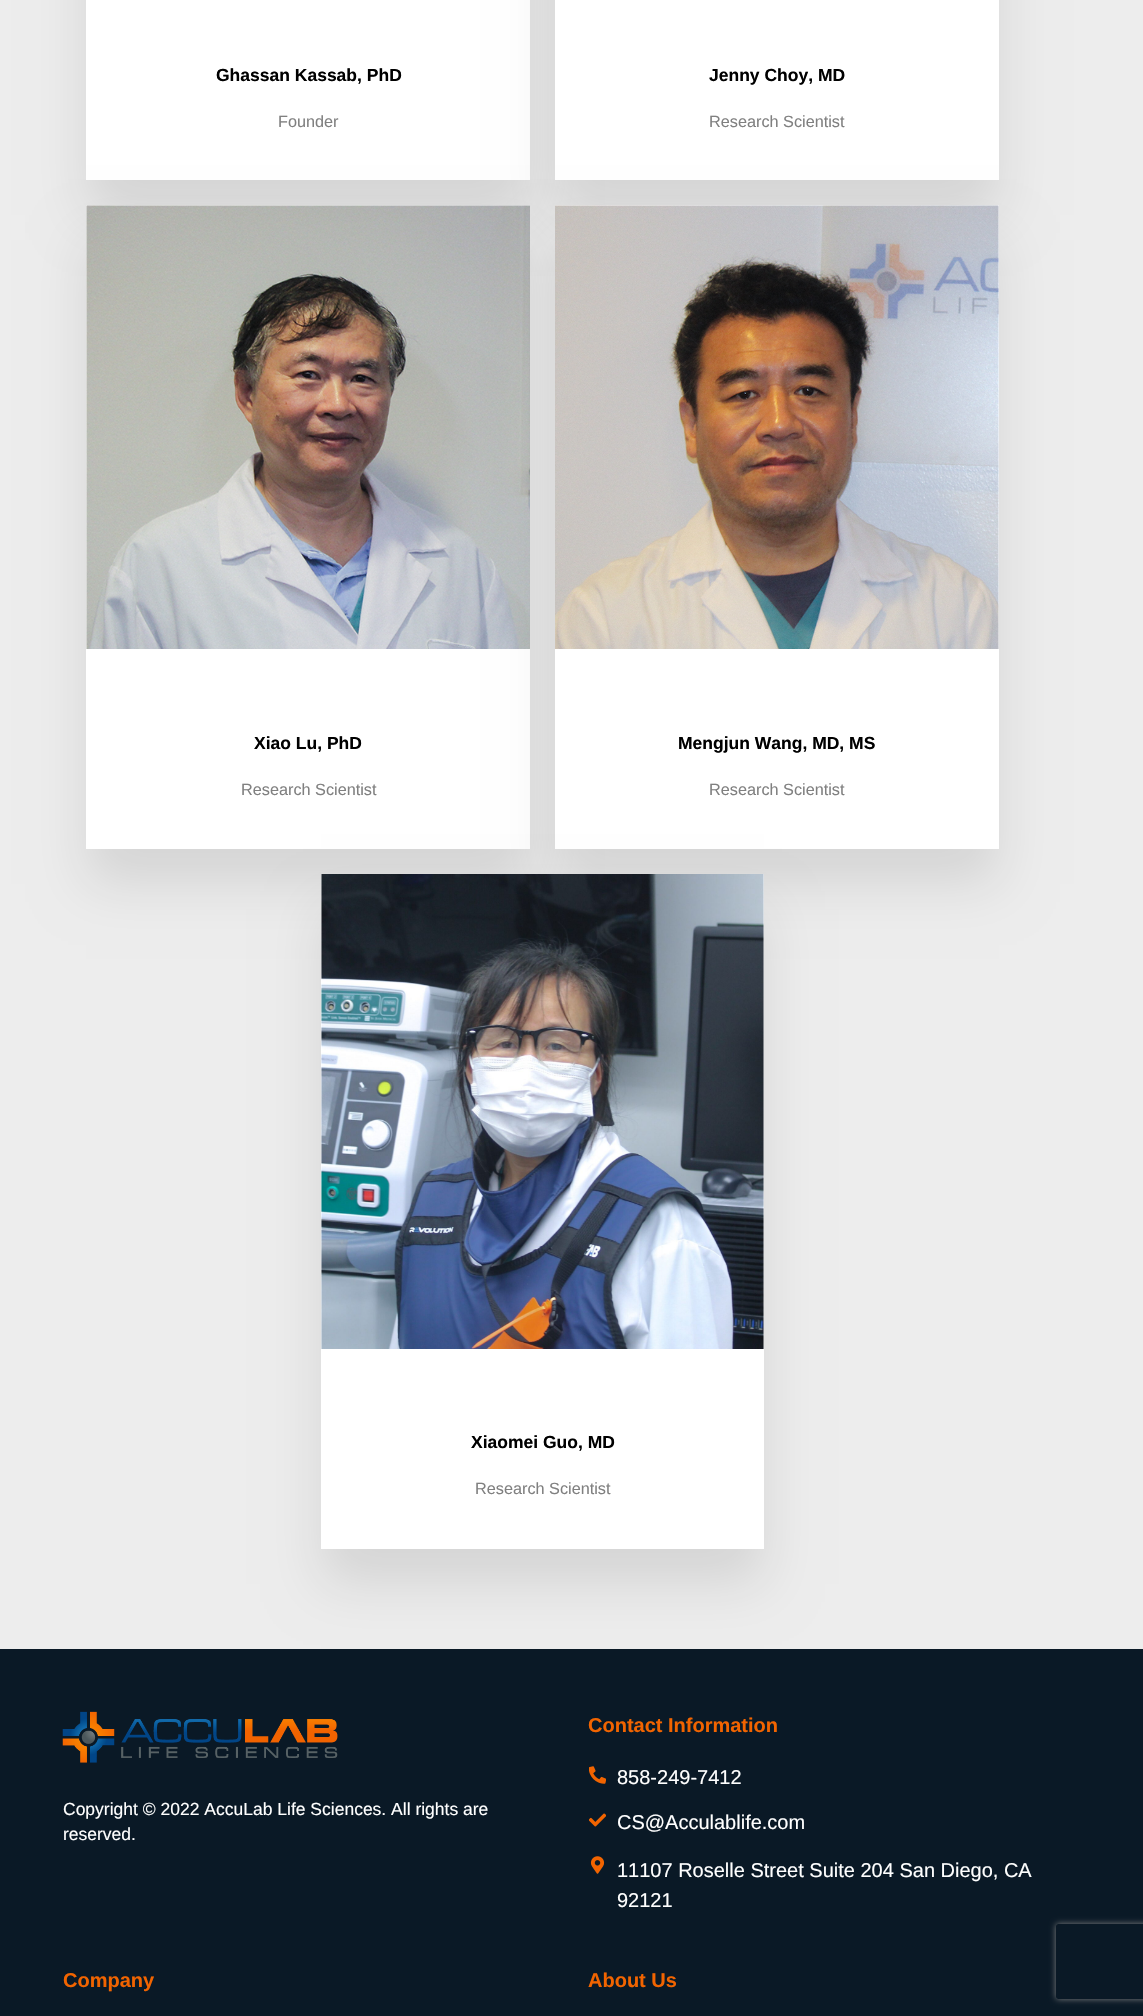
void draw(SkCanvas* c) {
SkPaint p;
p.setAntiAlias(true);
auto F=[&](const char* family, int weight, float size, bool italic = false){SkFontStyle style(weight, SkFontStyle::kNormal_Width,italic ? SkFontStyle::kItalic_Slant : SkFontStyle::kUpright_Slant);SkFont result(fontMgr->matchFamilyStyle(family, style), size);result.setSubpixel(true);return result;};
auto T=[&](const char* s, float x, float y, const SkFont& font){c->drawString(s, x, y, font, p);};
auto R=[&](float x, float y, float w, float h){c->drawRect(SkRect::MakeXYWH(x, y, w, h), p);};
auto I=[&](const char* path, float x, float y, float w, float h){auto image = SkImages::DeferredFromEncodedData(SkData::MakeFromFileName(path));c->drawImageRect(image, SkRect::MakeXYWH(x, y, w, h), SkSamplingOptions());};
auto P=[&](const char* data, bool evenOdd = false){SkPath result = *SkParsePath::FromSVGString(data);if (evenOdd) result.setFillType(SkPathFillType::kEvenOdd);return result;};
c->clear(0xffededed);
p.setColor(0x1a000000);
p.setMaskFilter(SkMaskFilter::MakeBlur(kNormal_SkBlurStyle, 25));
c->drawRect(SkRect::MakeXYWH(86,-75,444,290),p);
p.setMaskFilter(nullptr);
p.setColor(0xffffffff);
R(86,0,444,180);
auto f1 = F("Liberation Sans",700,17.5);
p.setColor(0xff000000);
T("Ghassan Kassab, PhD",216,81,f1);
auto f2 = F("Liberation Sans",400,16.25);
p.setColor(0xff808080);
T("Founder",278,127,f2);
p.setColor(0x1a000000);
p.setMaskFilter(SkMaskFilter::MakeBlur(kNormal_SkBlurStyle, 25));
c->drawRect(SkRect::MakeXYWH(555,-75,444,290),p);
p.setMaskFilter(nullptr);
p.setColor(0xffffffff);
R(555,0,444,180);
p.setColor(0xff000000);
T("Jenny Choy, MD",709,81,f1);
p.setColor(0xff808080);
T("Research Scientist",709,127,f2);
p.setColor(0x1a000000);
p.setMaskFilter(SkMaskFilter::MakeBlur(kNormal_SkBlurStyle, 25));
c->drawRect(SkRect::MakeXYWH(86,240,444,644),p);
p.setMaskFilter(nullptr);
p.setColor(0xffffffff);
R(86,205,444,644);
I("1.png",86,205,444,444);
p.setColor(0xff000000);
T("Xiao Lu, PhD",254,749,f1);
p.setColor(0xff808080);
T("Research Scientist",241,795,f2);
p.setColor(0x1a000000);
p.setMaskFilter(SkMaskFilter::MakeBlur(kNormal_SkBlurStyle, 25));
c->drawRect(SkRect::MakeXYWH(555,240,444,644),p);
p.setMaskFilter(nullptr);
p.setColor(0xffffffff);
R(555,205,444,644);
I("2.png",555,205,444,444);
p.setColor(0xff000000);
T("Mengjun Wang, MD, MS",678,749,f1);
p.setColor(0xff808080);
T("Research Scientist",709,795,f2);
p.setColor(0x1a000000);
p.setMaskFilter(SkMaskFilter::MakeBlur(kNormal_SkBlurStyle, 25));
c->drawRect(SkRect::MakeXYWH(321,909,443,675),p);
p.setMaskFilter(nullptr);
p.setColor(0xffffffff);
R(321,874,443,675);
I("3.png",321,874,443,475);
p.setColor(0xff000000);
T("Xiaomei Guo, MD",471,1448,f1);
p.setColor(0xff808080);
T("Research Scientist",475,1494,f2);
p.setColor(0xff0a1926);
R(0,1649,1143,367);
I("4.png",62,1711,276,52);
auto f3 = F("Liberation Sans",400,17.5);
p.setColor(0xffffffff);
T("Copyright © 2022 AccuLab Life Sciences. All rights are",63,1815,f3);
T("reserved.",63,1840,f3);
auto f4 = F("Liberation Sans",700,20);
p.setColor(0xfff26400);
T("Contact Information",588,1732,f4);
I("5.png",589,1766,17,18);
auto f5 = F("Liberation Sans",400,20);
p.setColor(0xffffffff);
T("858-249-7412",617,1784,f5);
I("6.png",589,1813,17,14);
T("CS@Acculablife.com",617,1829,f5);
I("7.png",590,1856,15,18);
T("11107 Roselle Street Suite 204 San Diego, CA",617,1877,f5);
T("92121",617,1907,f5);
p.setColor(0xfff26400);
T("Company",63,1987,f4);
T("About Us",588,1987,f4);
c->save();
c->clipPath(P("M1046 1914h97v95h-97zm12.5 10h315c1.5 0 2.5 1 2.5 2.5v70c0 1.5-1 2.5-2.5 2.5h-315c-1.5 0-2.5-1-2.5-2.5v-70c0-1.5 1-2.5 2.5-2.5z",true),true);
p.setColor(0xff808080);
p.setMaskFilter(SkMaskFilter::MakeBlur(kNormal_SkBlurStyle, 3));
c->drawRoundRect(SkRect::MakeXYWH(1056,1924,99,75),2.5,2.5,p);
p.setMaskFilter(nullptr);
c->restore();
}
